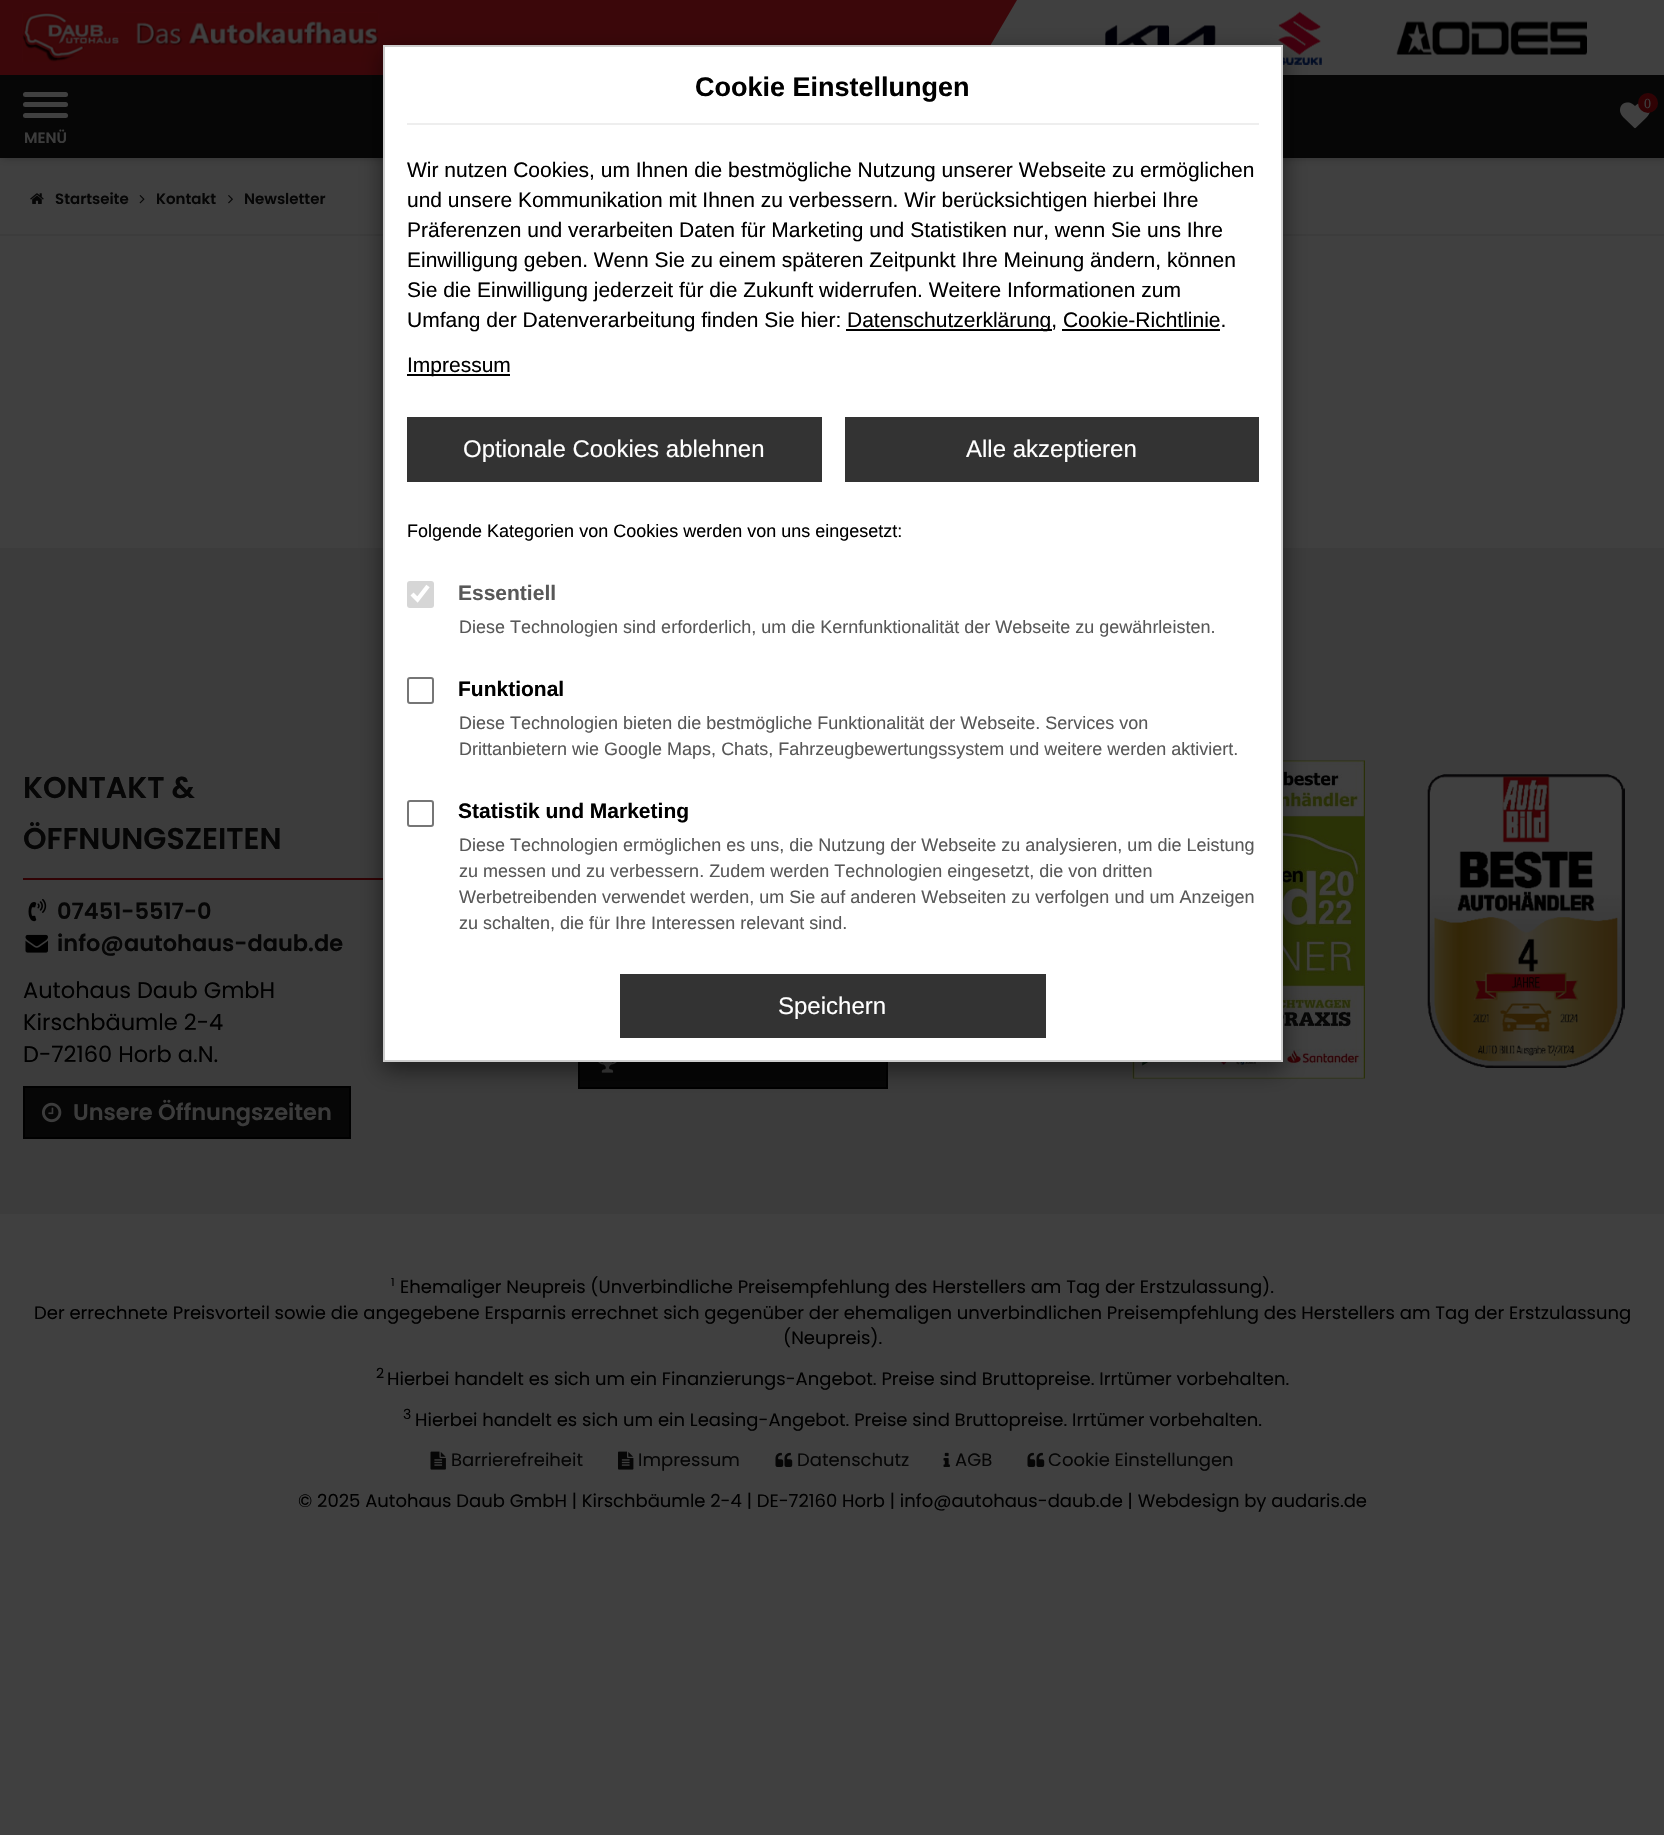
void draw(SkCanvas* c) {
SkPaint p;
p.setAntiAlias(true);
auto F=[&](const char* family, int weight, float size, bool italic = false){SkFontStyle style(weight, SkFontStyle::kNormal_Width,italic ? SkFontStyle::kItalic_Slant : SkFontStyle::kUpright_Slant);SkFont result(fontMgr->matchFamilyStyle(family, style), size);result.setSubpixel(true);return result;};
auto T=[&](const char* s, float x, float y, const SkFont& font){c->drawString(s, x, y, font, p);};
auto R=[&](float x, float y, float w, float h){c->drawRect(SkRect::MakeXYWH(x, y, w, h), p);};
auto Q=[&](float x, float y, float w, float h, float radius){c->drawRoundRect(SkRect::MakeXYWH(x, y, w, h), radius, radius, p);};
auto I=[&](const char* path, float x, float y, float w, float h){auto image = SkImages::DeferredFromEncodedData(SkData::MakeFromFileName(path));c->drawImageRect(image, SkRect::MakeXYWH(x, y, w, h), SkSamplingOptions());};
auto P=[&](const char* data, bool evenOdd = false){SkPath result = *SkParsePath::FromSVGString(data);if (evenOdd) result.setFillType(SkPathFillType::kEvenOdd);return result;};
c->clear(0xff404040);
p.setColor(0x40000000);
p.setMaskFilter(SkMaskFilter::MakeBlur(kNormal_SkBlurStyle, 4));
c->drawRect(SkRect::MakeXYWH(2,0,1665,158),p);
p.setMaskFilter(nullptr);
p.setColor(0xff3b070a);
R(0,0,1017,75);
I("1.png",22,12,357,50);
p.setColor(0xff404040);
R(1583,0,81,75);
c->drawPath(P("M1017 0h610l-44 75h-610z"),p);
I("2.png",1105,24,111,21);
I("3.png",1278,11,44,54);
p.setColor(0xff060606);
R(0,75,1664,83);
p.setColor(0xff3c3c3c);
R(0,234,1664,2);
R(0,548,1664,666);
p.setColor(0xff300204);
R(23,878,360,2);
p.setColor(0xff060606);
c->drawRect(SkRect::MakeXYWH(24,1087,326,51),p);
p.setStroke(true);
p.setStrokeWidth(2);
p.setColor(0xff000000);
c->drawRect(SkRect::MakeXYWH(24,1087,326,51),p);
p.setStroke(false);
p.setColor(0xff060606);
R(580,1062,306,25);
p.setStroke(true);
p.setColor(0xff000000);
c->drawRect(SkRect::MakeXYWH(579,1038,308,50),p);
I("12.png",598,1062,19,11);
I("13.png",1132,760,233,319);
p.setStroke(false);
p.setColor(0x80000000);
p.setMaskFilter(SkMaskFilter::MakeBlur(kNormal_SkBlurStyle, 11));
c->drawRect(SkRect::MakeXYWH(383,53,900,1017),p);
p.setMaskFilter(nullptr);
p.setColor(0xffffffff);
c->drawRect(SkRect::MakeXYWH(384,46,898,1015),p);
p.setStroke(true);
p.setColor(0xffcccccc);
c->drawRect(SkRect::MakeXYWH(384,46,898,1015),p);
p.setStroke(false);
p.setColor(0xffeeeeee);
R(407,123,852,2);
auto f1 = F("Liberation Sans",700,27);
p.setColor(0xff000000);
T("Cookie Einstellungen",695,96,f1);
auto f2 = F("Liberation Sans",400,21);
T("Wir nutzen Cookies, um Ihnen die bestmögliche Nutzung unserer Webseite zu ermöglichen",407,177,f2);
T("und unsere Kommunikation mit Ihnen zu verbessern. Wir berücksichtigen hierbei Ihre",407,207,f2);
T("Präferenzen und verarbeiten Daten für Marketing und Statistiken nur, wenn Sie uns Ihre",407,237,f2);
T("Einwilligung geben. Wenn Sie zu einem späteren Zeitpunkt Ihre Meinung ändern, können",407,267,f2);
T("Sie die Einwilligung jederzeit für die Zukunft widerrufen. Weitere Informationen zum",407,297,f2);
T("Umfang der Datenverarbeitung finden Sie hier:",407,327,f2);
R(846,329,206,2);
T("Datenschutzerklärung, Cookie-Richtlinie.",847,327,f2);
R(1062,329,158,2);
R(407,374,103,2);
T("Impressum",407,372,f2);
p.setColor(0xff333333);
R(407,417,415,65);
auto f3 = F("Liberation Sans",400,24);
p.setColor(0xffffffff);
T("Optionale Cookies ablehnen",463,457,f3);
p.setColor(0xff333333);
R(845,417,414,65);
p.setColor(0xffffffff);
T("Alle akzeptieren",966,457,f3);
auto f4 = F("Liberation Sans",400,18);
p.setColor(0xff000000);
T("Folgende Kategorien von Cookies werden von uns eingesetzt:",407,537,f4);
p.setColor(0xffd6d6d6);
Q(407,581,27,27,3);
p.setStroke(true);
p.setStrokeWidth(4.3);
p.setColor(0xffffffff);
c->drawPath(P("M412 594l5.5 5.5l10.5-13.5"),p);
auto f5 = F("Liberation Sans",700,21);
p.setStroke(false);
p.setColor(0xff585858);
T("Essentiell",458,600,f5);
T("Diese Technologien sind erforderlich, um die Kernfunktionalität der Webseite zu gewährleisten.",459,633,f4);
p.setStroke(true);
p.setStrokeWidth(2);
p.setColor(0xff767676);
c->drawRoundRect(SkRect::MakeXYWH(408,678,25,25),2,2,p);
p.setStroke(false);
p.setColor(0xff000000);
T("Funktional",458,696,f5);
p.setColor(0xff585858);
T("Diese Technologien bieten die bestmögliche Funktionalität der Webseite. Services von",459,729,f4);
T("Drittanbietern wie Google Maps, Chats, Fahrzeugbewertungssystem und weitere werden aktiviert.",459,755,f4);
p.setStroke(true);
p.setColor(0xff767676);
c->drawRoundRect(SkRect::MakeXYWH(408,801,25,25),2,2,p);
p.setStroke(false);
p.setColor(0xff000000);
T("Statistik und Marketing",458,818,f5);
p.setColor(0xff585858);
T("Diese Technologien ermöglichen es uns, die Nutzung der Webseite zu analysieren, um die Leistung",459,851,f4);
T("zu messen und zu verbessern. Zudem werden Technologien eingesetzt, die von dritten",459,877,f4);
T("Werbetreibenden verwendet werden, um Sie auf anderen Webseiten zu verfolgen und um Anzeigen",459,903,f4);
T("zu schalten, die für Ihre Interessen relevant sind.",459,929,f4);
p.setColor(0xff333333);
R(620,974,426,64);
p.setColor(0xffffffff);
T("Speichern",778,1014,f3);
I("4.png",1396,21,191,34);
I("5.png",1620,102,30,27);
p.setColor(0xff300204);
c->drawCircle(1648,103,10,p);
auto f6 = F("Liberation Serif",400,14);
p.setColor(0xff3c3c3c);
T("0",1644,108,f6);
p.setColor(0xff404040);
Q(23,102,45,5,2.5);
Q(23,92,45,5,2.5);
Q(23,113,45,5,2.5);
auto f7 = F("Poppins",600,15);
p.setColor(0xff3c3c3c);
T("MENÜ",24,143,f7);
I("6.png",30,193,14,11);
p.setColor(0xff060606);
T("Startseite",55,204,f7);
I("7.png",139,195,6,9);
T("Kontakt",156,204,f7);
I("8.png",228,195,5,9);
T("Newsletter",244,204,f7);
auto f8 = F("Poppins",600,30);
T("KONTAKT &",23,798,f8);
T("ÖFFNUNGSZEITEN",23,849,f8);
I("9.png",28,898,19,24);
auto f9 = F("Poppins",600,22.5);
T("07451-5517-0",57,919,f9);
I("10.png",25,934,23,19);
T("info@autohaus-daub.de",57,951,f9);
auto f10 = F("Poppins",400,22.5);
p.setColor(0xff000000);
T("Autohaus Daub GmbH",23,998,f10);
T("Kirschbäumle 2-4",23,1030,f10);
T("D-72160 Horb a.N.",23,1062,f10);
I("11.png",42,1102,20,21);
p.setColor(0xff3c3c3c);
T("Unsere Öffnungszeiten",73,1120,f9);
I("14.png",1427,774,198,294);
auto f11 = F("Poppins",400,11);
p.setColor(0xff000000);
T("1",391,1286,f11);
auto f12 = F("Poppins",400,18);
T("Ehemaliger Neupreis (Unverbindliche Preisempfehlung des Herstellers am Tag der Erstzulassung).",400,1293,f12);
T("Der errechnete Preisvorteil sowie die angegebene Ersparnis errechnet sich gegenüber der ehemaligen unverbindlichen Preisempfehlung des Herstellers am Tag der Erstzulassung",34,1319,f12);
T("(Neupreis).",783,1344,f12);
auto f13 = F("Poppins",400,14);
T("2",376,1378,f13);
T("Hierbei handelt es sich um ein Finanzierungs-Angebot. Preise sind Bruttopreise. Irrtümer vorbehalten.",387,1385,f12);
T("3",403,1419,f13);
T("Hierbei handelt es sich um ein Leasing-Angebot. Preise sind Bruttopreise. Irrtümer vorbehalten.",415,1426,f12);
I("15.png",430,1451,16,19);
p.setColor(0xff060606);
T("Barrierefreiheit",451,1466,f12);
I("16.png",618,1451,16,19);
T("Impressum",638,1466,f12);
I("17.png",775,1452,18,15);
T("Datenschutz",797,1466,f12);
I("18.png",943,1452,7,15);
T("AGB",955,1466,f12);
I("17.png",1027,1452,18,15);
T("Cookie Einstellungen",1048,1466,f12);
p.setColor(0xff000000);
T("© 2025 Autohaus Daub GmbH | Kirschbäumle 2-4 | DE-72160 Horb | info@autohaus-daub.de | Webdesign by audaris.de",298,1507,f12);
}
